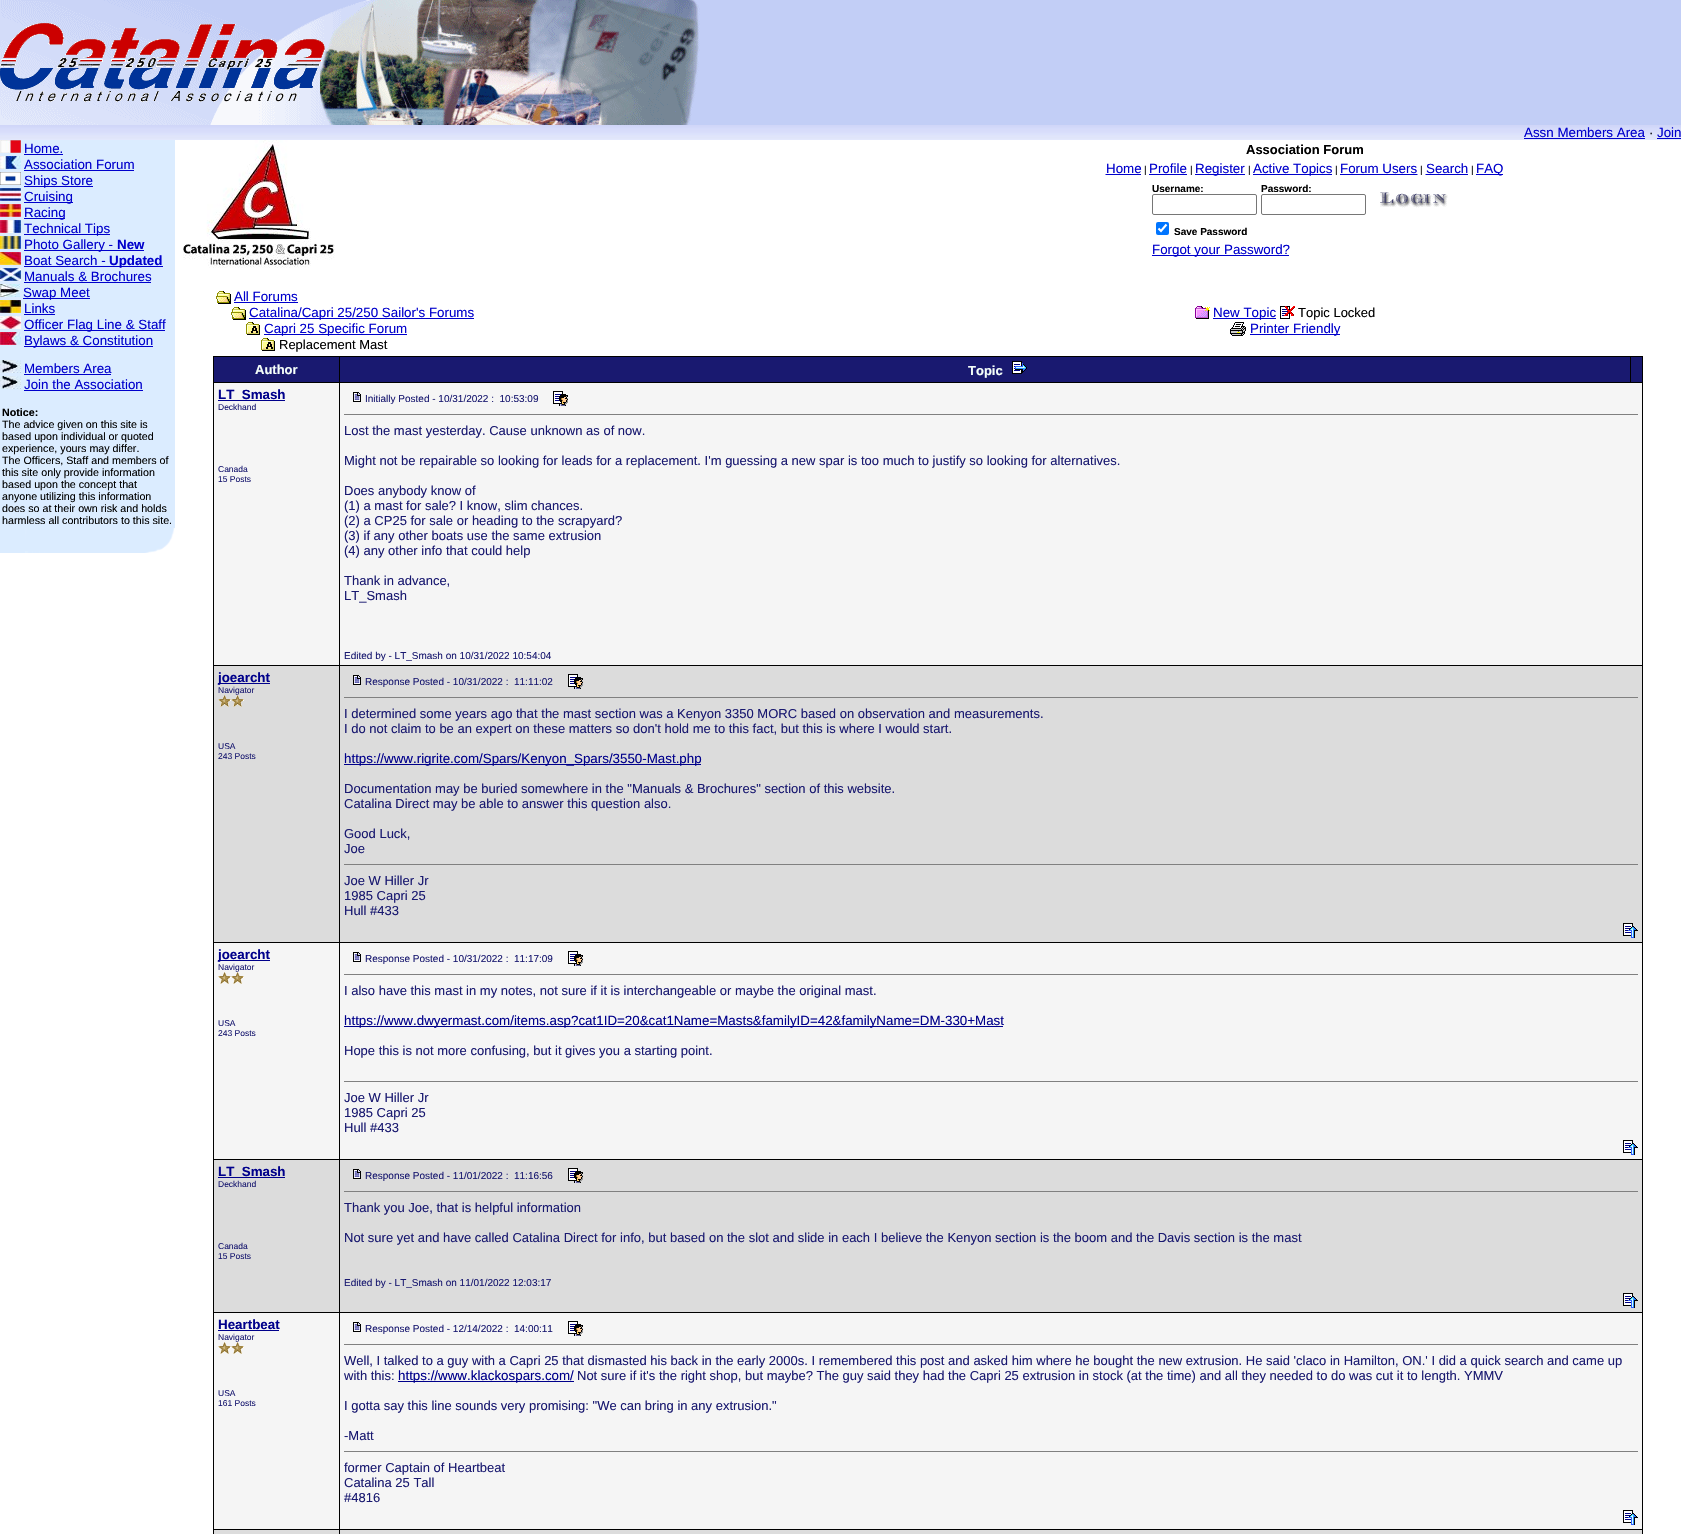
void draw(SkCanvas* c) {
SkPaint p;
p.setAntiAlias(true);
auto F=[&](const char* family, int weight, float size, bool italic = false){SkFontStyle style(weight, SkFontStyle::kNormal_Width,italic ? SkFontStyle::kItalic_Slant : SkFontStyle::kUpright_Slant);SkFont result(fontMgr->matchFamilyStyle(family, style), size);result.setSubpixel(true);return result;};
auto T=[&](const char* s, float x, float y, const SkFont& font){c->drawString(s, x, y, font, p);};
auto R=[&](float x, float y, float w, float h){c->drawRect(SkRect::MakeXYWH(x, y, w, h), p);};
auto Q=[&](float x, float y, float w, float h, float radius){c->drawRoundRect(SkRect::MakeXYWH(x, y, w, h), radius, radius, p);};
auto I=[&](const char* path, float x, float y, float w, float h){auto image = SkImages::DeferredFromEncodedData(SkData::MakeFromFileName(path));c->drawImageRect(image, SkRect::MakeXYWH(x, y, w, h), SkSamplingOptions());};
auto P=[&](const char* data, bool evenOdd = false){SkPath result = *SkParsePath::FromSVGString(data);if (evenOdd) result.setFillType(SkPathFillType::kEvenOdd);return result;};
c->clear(0xffffffff);
I("1.png",0,0,700,125);
I("2.png",0,23,325,79);
p.setColor(0xffc2cef6);
R(700,0,981,125);
I("3.png",0,125,1681,15);
auto f1 = F("Liberation Sans",400,13.35);
p.setColor(0xff0000cc);
T("Assn Members Area",1524,137,f1);
R(1524,138,121,1);
auto f2 = F("Liberation Sans",400,13);
p.setColor(0xff000000);
T("·",1649,137,f2);
p.setColor(0xff0000cc);
T("Join",1657,137,f1);
R(1657,138,24,1);
p.setColor(0xffdbecff);
R(0,140,175,388);
I("4.png",0,140,21,13);
p.setColor(0xff0000cc);
T("Home.",24,153,f1);
R(24,154,39,1);
I("5.png",0,156,21,13);
T("Association Forum",24,169,f1);
R(24,170,110,1);
I("6.png",0,172,21,13);
R(24,186,69,1);
T("Ships Store",24,185,f1);
I("7.png",0,188,21,13);
R(24,202,49,1);
T("Cruising",24,201,f1);
I("8.png",0,204,21,13);
R(24,218,41,1);
T("Racing",24,217,f1);
I("9.png",0,220,21,13);
R(24,234,86,1);
T("Technical Tips",24,233,f1);
I("10.png",0,236,21,13);
R(24,250,120,1);
T("Photo Gallery -",24,249,f1);
auto f3 = F("Liberation Sans",700,13.35);
T("New",117,249,f3);
I("11.png",0,252,21,13);
T("Boat Search -",24,265,f1);
R(24,266,139,1);
T("Updated",109,265,f3);
I("12.png",0,268,21,13);
T("Manuals & Brochures",24,281,f1);
R(24,282,127,1);
I("13.png",0,284,20,13);
R(23,298,67,1);
T("Swap Meet",23,297,f1);
I("14.png",0,300,21,13);
T("Links",24,313,f1);
R(24,314,31,1);
I("15.png",0,316,21,13);
R(24,330,141,1);
T("Officer Flag Line & Staff",24,329,f1);
I("16.png",0,332,21,13);
R(24,346,129,1);
T("Bylaws & Constitution",24,345,f1);
I("17.png",0,360,21,13);
T("Members Area",24,373,f1);
R(24,374,87,1);
I("17.png",0,376,21,13);
T("Join the Association",24,389,f1);
R(24,390,119,1);
auto f4 = F("Liberation Sans",700,10.7);
p.setColor(0xff000000);
T("Notice:",2,416,f4);
auto f5 = F("Liberation Sans",400,10.7);
T("The advice given on this site is",2,428,f5);
T("based upon individual or quoted",2,440,f5);
T("experience, yours may differ.",2,452,f5);
T("The Officers, Staff and members of",2,464,f5);
T("this site only provide information",2,476,f5);
T("based upon the concept that",2,488,f5);
T("anyone utilizing this information",2,500,f5);
T("does so at their own risk and holds",2,512,f5);
T("harmless all contributors to this site.",2,524,f5);
I("18.png",0,528,175,25);
I("19.png",183,140,152,128);
auto f6 = F("Liberation Sans",700,13);
T("Association Forum",1246,154,f6);
p.setColor(0xff0000cc);
T("Home",1106,173,f1);
auto f7 = F("Liberation Sans",400,10);
p.setColor(0xff000000);
T("|",1144,173,f7);
p.setStroke(true);
p.setStrokeWidth(1);
p.setColor(0xff0000cc);
p.setPathEffect(SkDashPathEffect::Make({{1,1}}, 0));
c->drawPath(P("M1105.5 174.5h35.5"),p);
p.setPathEffect(nullptr);
p.setStroke(false);
R(1106,174,35,1);
R(1149,174,38,1);
T("Profile",1149,173,f1);
p.setColor(0xff000000);
T("|",1190,173,f7);
p.setColor(0xff0000cc);
R(1195,174,50,1);
T("Register",1195,173,f1);
p.setColor(0xff000000);
T("|",1248,173,f7);
p.setColor(0xff0000cc);
R(1253,174,79,1);
T("Active Topics",1253,173,f1);
p.setColor(0xff000000);
T("|",1335,173,f7);
p.setStroke(true);
p.setColor(0xff0000cc);
p.setPathEffect(SkDashPathEffect::Make({{1,1}}, 0));
c->drawPath(P("M1340.5 174.5h77"),p);
p.setPathEffect(nullptr);
p.setStroke(false);
R(1340,174,77,1);
T("Forum Users",1340,173,f1);
p.setColor(0xff000000);
T("|",1420,173,f7);
p.setStroke(true);
p.setColor(0xff0000cc);
p.setPathEffect(SkDashPathEffect::Make({{1,1}}, 0));
c->drawPath(P("M1425.5 174.5h42.5"),p);
p.setPathEffect(nullptr);
p.setStroke(false);
T("Search",1426,173,f1);
p.setColor(0xff000000);
T("|",1471,173,f7);
p.setColor(0xff0000cc);
R(1426,174,42,1);
R(1476,174,27,1);
T("FAQ",1476,173,f1);
auto f8 = F("Liberation Sans",700,10);
p.setColor(0xff000000);
T("Username:",1152,192,f8);
p.setStroke(true);
p.setColor(0xff767676);
c->drawRoundRect(SkRect::MakeXYWH(1152.5,194.5,104,20),1.5,1.5,p);
p.setStroke(false);
p.setColor(0xff000000);
T("Password:",1261,192,f8);
p.setStroke(true);
p.setColor(0xff767676);
c->drawRoundRect(SkRect::MakeXYWH(1261.5,194.5,104,20),1.5,1.5,p);
I("20.png",1380,192,68,16);
p.setStroke(false);
p.setColor(0xff0075ff);
Q(1156,222,13,13,2);
p.setStroke(true);
p.setStrokeWidth(2.1);
p.setColor(0xffffffff);
c->drawPath(P("M1158.5 228.5l2.5 2.5l5.5-6.5"),p);
p.setStroke(false);
p.setColor(0xff000000);
T("Save Password",1174,235,f8);
p.setColor(0xff0000cc);
R(1152,255,137,1);
T("Forgot your Password?",1152,254,f1);
I("21.png",216,291,15,13);
T("All Forums",234,301,f1);
R(234,302,64,1);
I("21.png",231,307,15,13);
R(249,318,225,1);
T("Catalina/Capri 25/250 Sailor's Forums",249,317,f1);
I("22.png",246,322,14,13);
R(264,334,143,1);
T("Capri 25 Specific Forum",264,333,f1);
I("22.png",261,338,14,13);
p.setColor(0xff000000);
T("Replacement Mast",279,349,f2);
I("23.png",1195,306,15,13);
p.setColor(0xff0000cc);
R(1213,318,63,1);
T("New Topic",1213,317,f1);
I("24.png",1280,306,15,13);
p.setColor(0xff000000);
T("Topic Locked",1298,317,f2);
I("25.png",1230,322,16,14);
p.setColor(0xff0000cc);
R(1250,334,90,1);
T("Printer Friendly",1250,333,f1);
p.setColor(0xff000000);
R(213,356,1430,1178);
p.setColor(0xff191970);
R(214,357,125,25);
p.setColor(0xfff5fffa);
T("Author",255,374,f6);
p.setColor(0xff191970);
R(340,357,1290,25);
p.setColor(0xfff5fffa);
T("Topic",968,375,f6);
I("26.png",1012,361,15,13);
p.setColor(0xff191970);
R(1631,357,11,25);
p.setColor(0xfff5f5f5);
R(214,383,125,282);
p.setColor(0xff00008b);
R(218,400,67,1);
T("LT_Smash",218,399,f3);
auto f9 = F("Liberation Sans",400,8.5);
p.setColor(0xff191970);
T("Deckhand",218,410,f9);
T("Canada",218,472,f9);
T("15 Posts",218,482,f9);
p.setColor(0xfff5f5f5);
R(340,383,1302,282);
I("27.png",353,392,8,10);
p.setColor(0xff191970);
T("Initially Posted - 10/31/2022 :  10:53:09",365,402,f7);
I("28.png",553,391,15,15);
p.setColor(0xff808080);
R(344,414,1294,1);
p.setColor(0xff191970);
T("Lost the mast yesterday. Cause unknown as of now.",344,435,f2);
T("Might not be repairable so looking for leads for a replacement. I'm guessing a new spar is too much to justify so looking for alternatives.",344,465,f2);
T("Does anybody know of",344,495,f2);
T("(1) a mast for sale? I know, slim chances.",344,510,f2);
T("(2) a CP25 for sale or heading to the scrapyard?",344,525,f2);
T("(3) if any other boats use the same extrusion",344,540,f2);
T("(4) any other info that could help",344,555,f2);
T("Thank in advance,",344,585,f2);
T("LT_Smash",344,600,f2);
T("Edited by - LT_Smash on 10/31/2022 10:54:04",344,659,f7);
p.setColor(0xffdcdcdc);
R(214,666,125,276);
p.setColor(0xff00008b);
R(218,683,52,1);
T("joearcht",218,682,f3);
p.setColor(0xff191970);
T("Navigator",218,693,f9);
I("29.png",218,695,13,12);
I("29.png",231,695,13,12);
T("USA",218,749,f9);
T("243 Posts",218,759,f9);
p.setColor(0xffdcdcdc);
R(340,666,1302,276);
I("30.png",353,675,8,10);
p.setColor(0xff191970);
T("Response Posted - 10/31/2022 :  11:11:02",365,685,f7);
I("31.png",568,674,15,15);
p.setColor(0xff808080);
R(344,697,1294,1);
p.setColor(0xff191970);
T("I determined some years ago that the mast section was a Kenyon 3350 MORC based on observation and measurements.",344,718,f2);
T("I do not claim to be an expert on these matters so don't hold me to this fact, but this is where I would start.",344,733,f2);
p.setColor(0xff00008b);
R(344,764,357,1);
T("https://www.rigrite.com/Spars/Kenyon_Spars/3550-Mast.php",344,763,f1);
p.setColor(0xff191970);
T("Documentation may be buried somewhere in the \"Manuals & Brochures\" section of this website.",344,793,f2);
T("Catalina Direct may be able to answer this question also.",344,808,f2);
T("Good Luck,",344,838,f2);
T("Joe",344,853,f2);
p.setColor(0xff808080);
R(344,864,1294,1);
p.setColor(0xff191970);
T("Joe W Hiller Jr",344,885,f2);
T("1985 Capri 25",344,900,f2);
T("Hull #433",344,915,f2);
I("32.png",1623,923,15,15);
p.setColor(0xfff5f5f5);
R(214,943,125,216);
p.setColor(0xff00008b);
R(218,960,52,1);
T("joearcht",218,959,f3);
p.setColor(0xff191970);
T("Navigator",218,970,f9);
I("33.png",218,972,13,12);
I("33.png",231,972,13,12);
T("USA",218,1026,f9);
T("243 Posts",218,1036,f9);
p.setColor(0xfff5f5f5);
R(340,943,1302,216);
I("27.png",353,952,8,10);
p.setColor(0xff191970);
T("Response Posted - 10/31/2022 :  11:17:09",365,962,f7);
I("28.png",568,951,15,15);
p.setColor(0xff808080);
R(344,974,1294,1);
p.setColor(0xff191970);
T("I also have this mast in my notes, not sure if it is interchangeable or maybe the original mast.",344,995,f2);
p.setColor(0xff00008b);
R(344,1026,659,1);
T("https://www.dwyermast.com/items.asp?cat1ID=20&cat1Name=Masts&familyID=42&familyName=DM-330+Mast",344,1025,f1);
p.setColor(0xff191970);
T("Hope this is not more confusing, but it gives you a starting point.",344,1055,f2);
p.setColor(0xff808080);
R(344,1081,1294,1);
p.setColor(0xff191970);
T("Joe W Hiller Jr",344,1102,f2);
T("1985 Capri 25",344,1117,f2);
T("Hull #433",344,1132,f2);
I("34.png",1623,1140,15,15);
p.setColor(0xffdcdcdc);
R(214,1160,125,152);
p.setColor(0xff00008b);
R(218,1177,67,1);
T("LT_Smash",218,1176,f3);
p.setColor(0xff191970);
T("Deckhand",218,1187,f9);
T("Canada",218,1249,f9);
T("15 Posts",218,1259,f9);
p.setColor(0xffdcdcdc);
R(340,1160,1302,152);
I("30.png",353,1169,8,10);
p.setColor(0xff191970);
T("Response Posted - 11/01/2022 :  11:16:56",365,1179,f7);
I("31.png",568,1168,15,15);
p.setColor(0xff808080);
R(344,1191,1294,1);
p.setColor(0xff191970);
T("Thank you Joe, that is helpful information",344,1212,f2);
T("Not sure yet and have called Catalina Direct for info, but based on the slot and slide in each I believe the Kenyon section is the boom and the Davis section is the mast",344,1242,f2);
T("Edited by - LT_Smash on 11/01/2022 12:03:17",344,1286,f7);
I("32.png",1623,1293,15,15);
p.setColor(0xfff5f5f5);
R(214,1313,125,216);
p.setColor(0xff00008b);
T("Heartbeat",218,1329,f3);
R(218,1330,61,1);
p.setColor(0xff191970);
T("Navigator",218,1340,f9);
I("33.png",218,1342,13,12);
I("33.png",231,1342,13,12);
T("USA",218,1396,f9);
T("161 Posts",218,1406,f9);
p.setColor(0xfff5f5f5);
R(340,1313,1302,216);
I("27.png",353,1322,8,10);
p.setColor(0xff191970);
T("Response Posted - 12/14/2022 :  14:00:11",365,1332,f7);
I("28.png",568,1321,15,15);
p.setColor(0xff808080);
R(344,1344,1294,1);
p.setColor(0xff191970);
T("Well, I talked to a guy with a Capri 25 that dismasted his back in the early 2000s. I remembered this post and asked him where he bought the new extrusion. He said 'claco in Hamilton, ON.' I did a quick search and came up",344,1365,f2);
T("with this:",344,1380,f2);
p.setColor(0xff00008b);
R(398,1381,176,1);
T("https://www.klackospars.com/",398,1380,f1);
p.setColor(0xff191970);
T("Not sure if it's the right shop, but maybe? The guy said they had the Capri 25 extrusion in stock (at the time) and all they needed to do was cut it to length. YMMV",577,1380,f2);
T("I gotta say this line sounds very promising: \"We can bring in any extrusion.\"",344,1410,f2);
T("-Matt",344,1440,f2);
p.setColor(0xff808080);
R(344,1451,1294,1);
p.setColor(0xff191970);
T("former Captain of Heartbeat",344,1472,f2);
T("Catalina 25 Tall",344,1487,f2);
T("#4816",344,1502,f2);
I("34.png",1623,1510,15,15);
p.setColor(0xffdcdcdc);
R(214,1530,125,4);
R(340,1530,1302,4);
}
